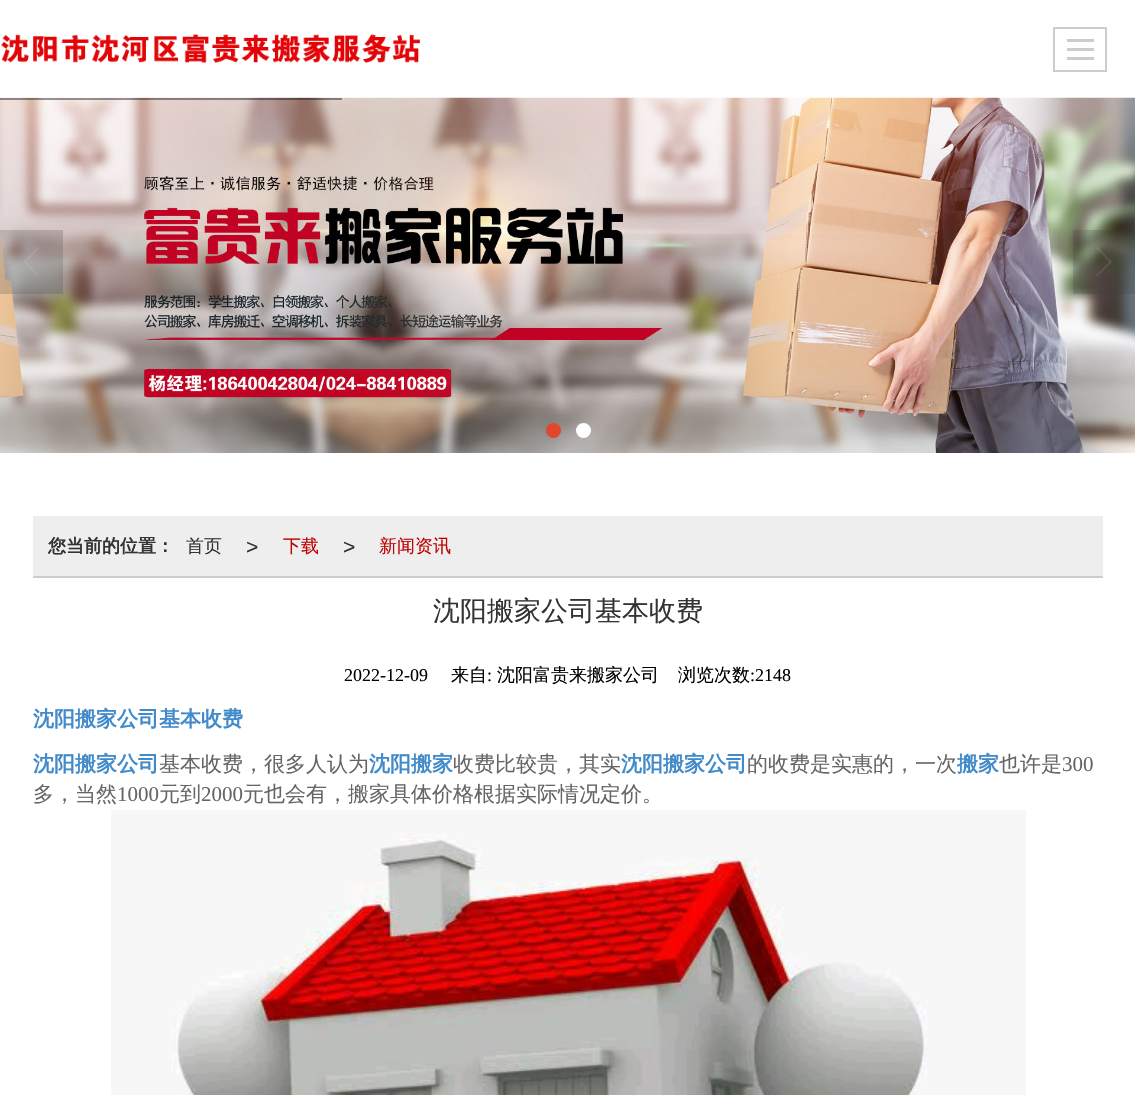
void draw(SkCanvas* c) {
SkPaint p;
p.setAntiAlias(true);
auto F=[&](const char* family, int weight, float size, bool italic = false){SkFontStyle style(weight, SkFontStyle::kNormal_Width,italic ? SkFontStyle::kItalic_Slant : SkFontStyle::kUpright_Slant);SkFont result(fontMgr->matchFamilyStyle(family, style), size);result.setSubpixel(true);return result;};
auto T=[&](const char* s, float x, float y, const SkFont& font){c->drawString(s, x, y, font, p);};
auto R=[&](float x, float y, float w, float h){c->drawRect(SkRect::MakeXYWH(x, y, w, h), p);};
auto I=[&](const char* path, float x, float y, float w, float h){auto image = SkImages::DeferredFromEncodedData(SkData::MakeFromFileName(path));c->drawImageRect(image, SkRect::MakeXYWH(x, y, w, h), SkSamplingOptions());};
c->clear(0xffffffff);
I("1.png",1,34,419,29);
p.setStroke(true);
p.setStrokeWidth(2);
p.setColor(0xffcccccc);
c->drawRect(SkRect::MakeXYWH(1054,28,52,43),p);
p.setStroke(false);
R(1067,39,27,3);
R(1067,48,27,3);
R(1067,57,27,3);
I("2.png",0,97,1135,356);
p.setColor(0x66000000);
R(0,98,342,2);
p.setColor(0x33393939);
R(0,230,63,64);
I("3.png",24,247,15,29);
R(1073,230,62,64);
I("4.png",1096,247,16,30);
p.setColor(0xffe1472f);
c->drawCircle(553.5,430.5,7.5,p);
p.setColor(0xffffffff);
c->drawCircle(583.5,430.5,7.5,p);
p.setColor(0xffeeeeee);
R(33,516,1070,60);
p.setColor(0xffcccccc);
R(33,576,1070,2);
auto f1 = F("WenQuanYi Zen Hei",700,18);
p.setColor(0xff333333);
T("您当前的位置：",48,552,f1);
auto f2 = F("WenQuanYi Zen Hei",500,18);
T("首页",186,552,f2);
auto f3 = F("Liberation Sans",400,21);
T(">",246,554,f3);
p.setColor(0xffc10202);
T("下载",283,552,f2);
p.setColor(0xff333333);
T(">",343,554,f3);
p.setColor(0xffc10202);
T("新闻资讯",379,552,f2);
auto f4 = F("WenQuanYi Zen Hei",500,27);
p.setColor(0xff333333);
T("沈阳搬家公司基本收费",433,620,f4);
auto f5 = F("Liberation Serif",400,18);
p.setColor(0xff000000);
T("2022-12-09",344,681,f5);
T("来自",451,681,f2);
T(":",487,681,f5);
T("沈阳富贵来搬家公司",497,681,f2);
T("浏览次数",678,681,f2);
T(":2148",750,681,f5);
auto f6 = F("WenQuanYi Zen Hei",700,21);
p.setColor(0xff428bca);
T("沈阳搬家公司基本收费",33,726,f6);
T("沈阳搬家公司",33,771,f6);
auto f7 = F("WenQuanYi Zen Hei",500,21);
p.setColor(0xff666666);
T("基本收费，很多人认为",159,771,f7);
p.setColor(0xff428bca);
T("沈阳搬家",369,771,f6);
p.setColor(0xff666666);
T("收费比较贵，其实",453,771,f7);
p.setColor(0xff428bca);
T("沈阳搬家公司",621,771,f6);
p.setColor(0xff666666);
T("的收费是实惠的，一次",747,771,f7);
p.setColor(0xff428bca);
T("搬家",957,771,f6);
p.setColor(0xff666666);
T("也许是",999,771,f7);
auto f8 = F("Liberation Serif",400,21);
T("300",1062,771,f8);
T("多，当然",33,801,f7);
T("1000",117,801,f8);
T("元到",159,801,f7);
T("2000",201,801,f8);
T("元也会有，搬家具体价格根据实际情况定价。",243,801,f7);
I("5.png",111,810,915,285);
}
